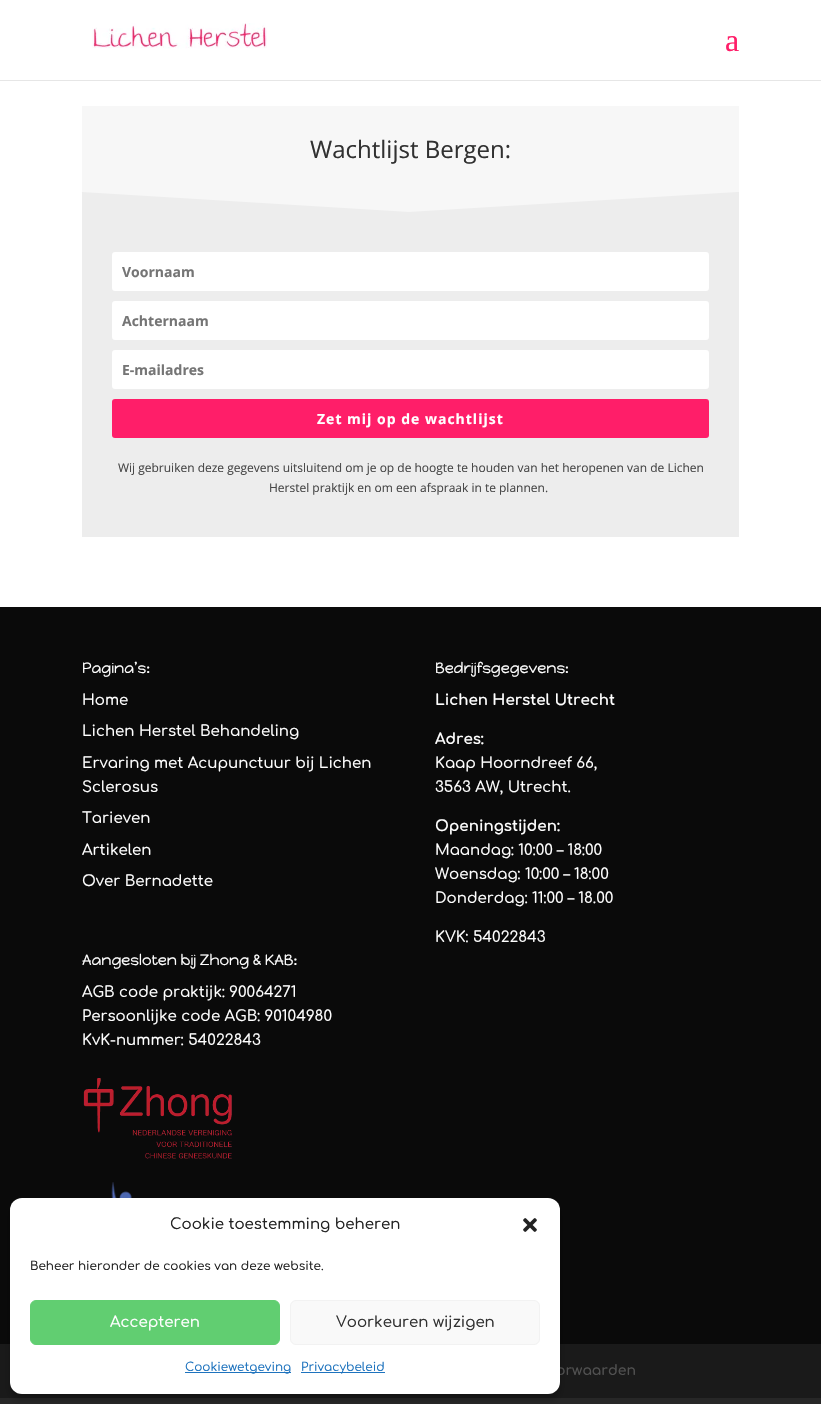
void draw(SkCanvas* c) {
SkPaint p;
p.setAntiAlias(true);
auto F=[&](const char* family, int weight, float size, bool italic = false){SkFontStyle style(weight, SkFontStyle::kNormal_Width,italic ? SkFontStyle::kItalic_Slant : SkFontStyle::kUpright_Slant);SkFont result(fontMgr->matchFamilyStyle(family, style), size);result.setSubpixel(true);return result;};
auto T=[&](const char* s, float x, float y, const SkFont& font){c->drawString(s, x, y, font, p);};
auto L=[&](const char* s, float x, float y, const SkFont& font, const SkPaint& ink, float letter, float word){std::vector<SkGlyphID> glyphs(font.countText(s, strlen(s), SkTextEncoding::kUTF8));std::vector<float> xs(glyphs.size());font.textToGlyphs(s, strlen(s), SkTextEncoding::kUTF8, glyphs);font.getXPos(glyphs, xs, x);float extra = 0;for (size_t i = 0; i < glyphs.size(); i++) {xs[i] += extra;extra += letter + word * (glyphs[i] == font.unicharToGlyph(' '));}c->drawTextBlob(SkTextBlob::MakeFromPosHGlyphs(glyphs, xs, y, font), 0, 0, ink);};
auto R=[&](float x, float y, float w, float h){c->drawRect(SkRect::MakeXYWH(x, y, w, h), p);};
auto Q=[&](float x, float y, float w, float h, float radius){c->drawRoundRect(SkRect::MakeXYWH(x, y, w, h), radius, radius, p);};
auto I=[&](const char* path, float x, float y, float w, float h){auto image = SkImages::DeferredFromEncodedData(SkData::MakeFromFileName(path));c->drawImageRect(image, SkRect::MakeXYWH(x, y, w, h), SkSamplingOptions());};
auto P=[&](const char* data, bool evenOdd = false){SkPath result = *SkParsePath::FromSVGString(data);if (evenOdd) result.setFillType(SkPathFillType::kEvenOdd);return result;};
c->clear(0xffffffff);
p.setColor(0xffe6e6e6);
R(0,80,821,1);
I("1.png",92,23,175,26);
auto f1 = F("Liberation Serif",400,32);
p.setColor(0xffff1e69);
T("a",725,51,f1);
p.setColor(0xfff7f7f7);
R(82,106,657,86);
auto f2 = F("Open Sans",400,24);
p.setColor(0xff313131);
T("Wachtlijst Bergen:",310,158,f2);
p.setColor(0xffededed);
R(82,192,657,345);
p.setColor(0xfff7f7f7);
c->drawPath(P("M81 192l328 20l329-20z"),p);
p.setColor(0xffffffff);
Q(112,252,597,39,3);
auto f3 = F("Open Sans",700,14);
p.setColor(0xff757575);
T("Voornaam",122,277,f3);
p.setColor(0xffffffff);
Q(112,301,597,39,3);
p.setColor(0xff757575);
T("Achternaam",122,326,f3);
p.setColor(0xffffffff);
Q(112,350,597,39,3);
p.setColor(0xff757575);
T("E-mailadres",122,375,f3);
p.setColor(0xffff1e69);
Q(112,399,597,39,3);
p.setColor(0xffffffff);
L("Zet mij op de wachtlijst",317,424,f3,p,1,0);
auto f4 = F("Open Sans",400,12);
p.setColor(0xff474747);
T("Wij gebruiken deze gegevens uitsluitend om je op de hoogte te houden van het heropenen van de Lichen",118,472,f4);
T("Herstel praktijk en om een afspraak in te plannen.",269,492,f4);
p.setColor(0xff0a0a0a);
R(0,607,821,737);
auto f5 = F("Happy Monkey",400,15);
p.setColor(0xffffffff);
T("Pagina’s:",82,673,f5);
auto f6 = F("Comfortaa",500,15);
T("Home",82,705,f6);
T("Lichen Herstel Behandeling",82,736,f6);
T("Ervaring met Acupunctuur bij Lichen",82,768,f6);
T("Sclerosus",82,792,f6);
T("Tarieven",82,823,f6);
T("Artikelen",82,855,f6);
T("Over Bernadette",82,886,f6);
T("Bedrijfsgegevens:",435,673,f5);
auto f7 = F("Comfortaa",700,15);
T("Lichen Herstel Utrecht",435,705,f7);
T("Adres:",435,744,f7);
T("Kaap Hoorndreef 66,",435,768,f6);
T("3563 AW, Utrecht.",435,792,f6);
T("Openingstijden:",435,831,f7);
T("Maandag: 10:00 – 18:00",435,855,f6);
T("Woensdag: 10:00 – 18:00",435,879,f6);
T("Donderdag: 11:00 – 18.00",435,903,f6);
T("KVK: 54022843",435,942,f6);
T("Aangesloten bij Zhong & KAB:",82,965,f5);
T("AGB code praktijk: 90064271",82,997,f6);
T("Persoonlijke code AGB: 90104980",82,1021,f6);
T("KvK-nummer: 54022843",82,1045,f6);
I("2.png",83,1078,149,81);
I("3.png",111,1182,21,16);
p.setColor(0xff1a1a1a);
R(0,1344,821,54);
auto f8 = F("Comfortaa",600,14);
p.setColor(0xff515151);
T("orwaarden",556,1375,f8);
p.setColor(0xff272727);
R(0,1398,821,6);
p.setColor(0x3b000000);
p.setMaskFilter(SkMaskFilter::MakeBlur(kNormal_SkBlurStyle, 3));
c->drawRoundRect(SkRect::MakeXYWH(10,1204,550,196),12,12,p);
p.setMaskFilter(nullptr);
p.setColor(0xffffffff);
Q(10,1198,550,196,12);
p.setColor(0xff222222);
T("Cookie toestemming beheren",170,1229,f6);
I("4.png",523,1218,14,14);
auto f9 = F("Comfortaa",500,12);
T("Beheer hieronder de cookies van deze website.",30,1270,f9);
p.setColor(0xff61ce71);
c->drawRoundRect(SkRect::MakeXYWH(30.5,1300.5,249,44),5.5,5.5,p);
p.setStroke(true);
p.setStrokeWidth(1);
c->drawRoundRect(SkRect::MakeXYWH(30.5,1300.5,249,44),5.5,5.5,p);
p.setStroke(false);
p.setColor(0xffffffff);
T("Accepteren",110,1327,f6);
p.setColor(0xfff9f9f9);
c->drawRoundRect(SkRect::MakeXYWH(290.5,1300.5,249,44),5.5,5.5,p);
p.setStroke(true);
p.setColor(0xfff2f2f2);
c->drawRoundRect(SkRect::MakeXYWH(290.5,1300.5,249,44),5.5,5.5,p);
p.setStroke(false);
p.setColor(0xff313131);
T("Voorkeuren wijzigen",336,1327,f6);
p.setColor(0xff1e73be);
R(185,1372,106,1);
T("Cookiewetgeving",185,1371,f9);
R(301,1372,84,1);
T("Privacybeleid",301,1371,f9);
}
